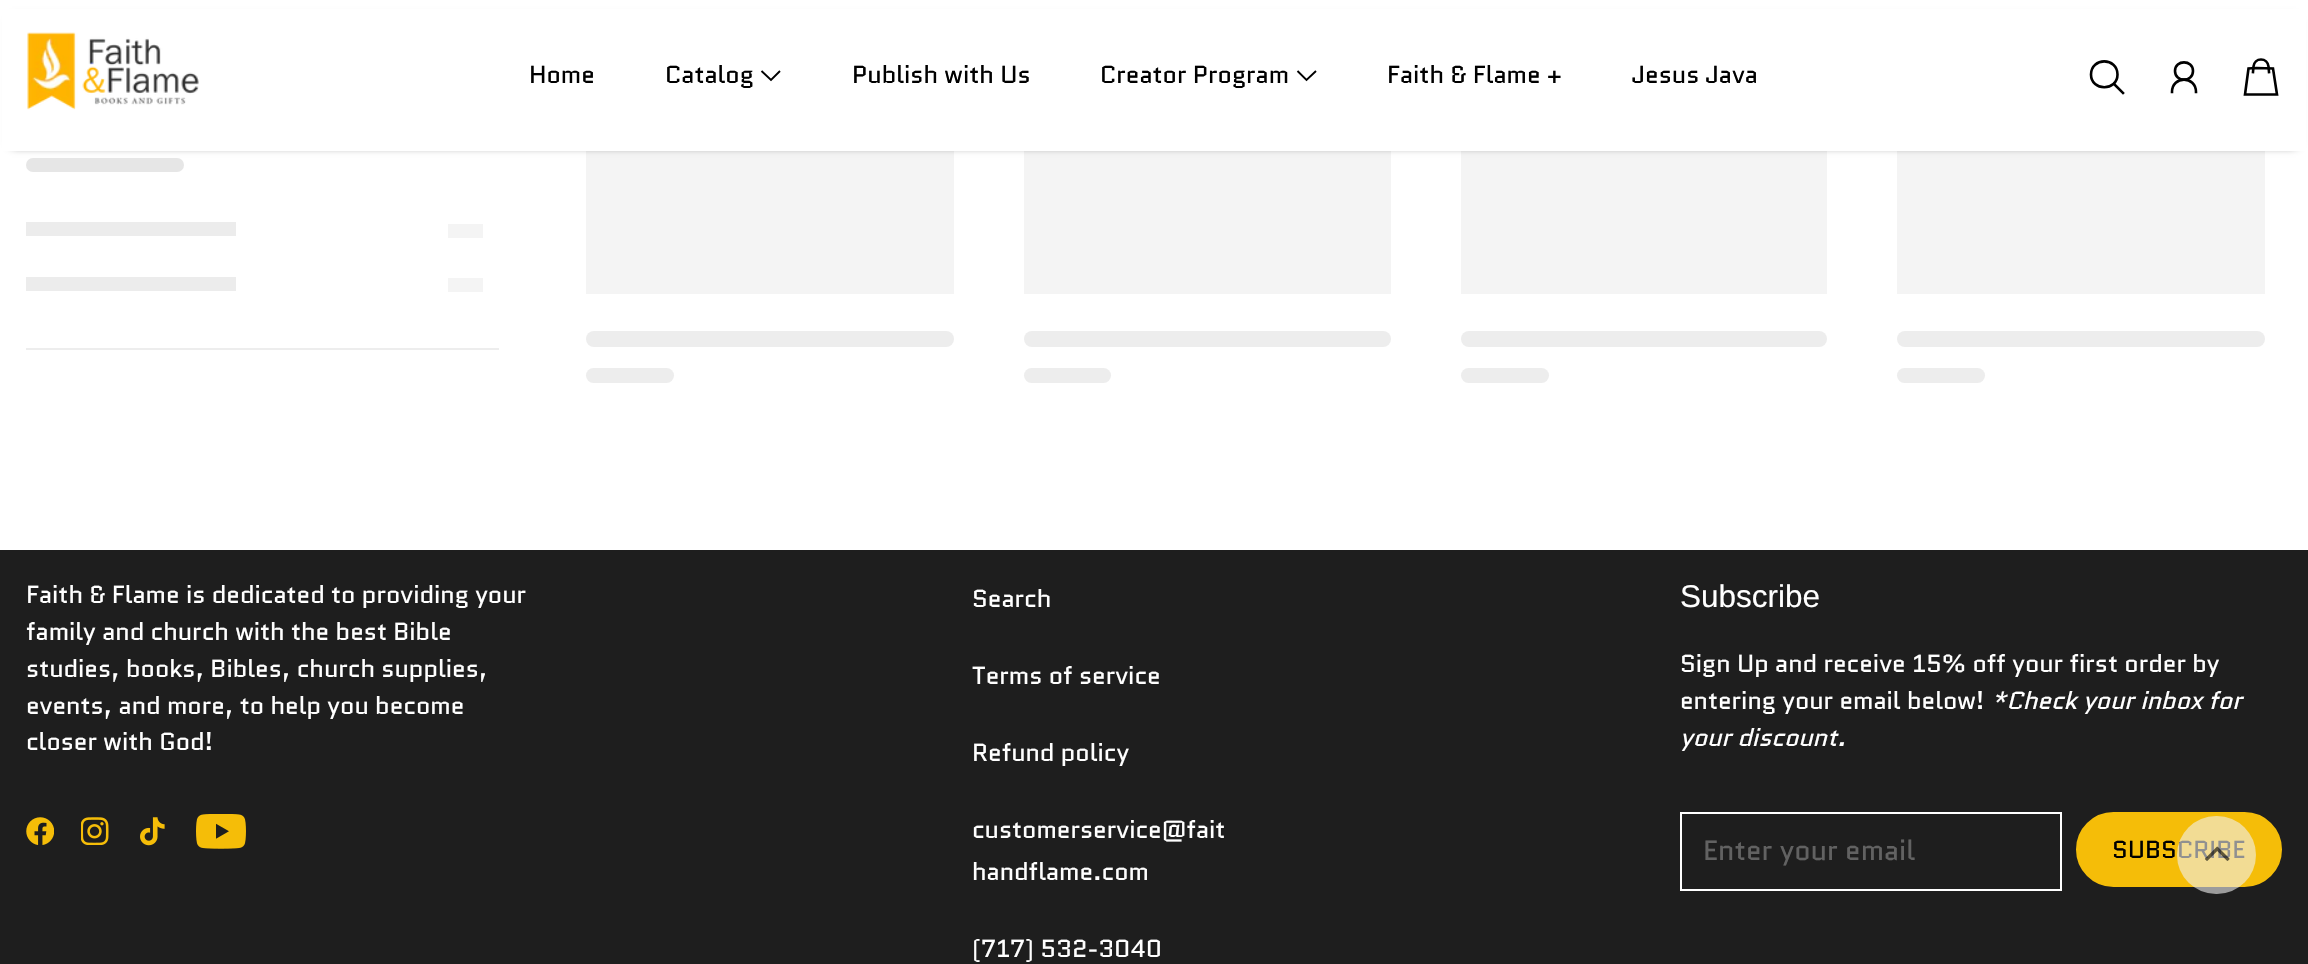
void draw(SkCanvas* c) {
SkPaint p;
p.setAntiAlias(true);
auto F=[&](const char* family, int weight, float size, bool italic = false){SkFontStyle style(weight, SkFontStyle::kNormal_Width,italic ? SkFontStyle::kItalic_Slant : SkFontStyle::kUpright_Slant);SkFont result(fontMgr->matchFamilyStyle(family, style), size);result.setSubpixel(true);return result;};
auto T=[&](const char* s, float x, float y, const SkFont& font){c->drawString(s, x, y, font, p);};
auto R=[&](float x, float y, float w, float h){c->drawRect(SkRect::MakeXYWH(x, y, w, h), p);};
auto Q=[&](float x, float y, float w, float h, float radius){c->drawRoundRect(SkRect::MakeXYWH(x, y, w, h), radius, radius, p);};
auto I=[&](const char* path, float x, float y, float w, float h){auto image = SkImages::DeferredFromEncodedData(SkData::MakeFromFileName(path));c->drawImageRect(image, SkRect::MakeXYWH(x, y, w, h), SkSamplingOptions());};
auto P=[&](const char* data, bool evenOdd = false){SkPath result = *SkParsePath::FromSVGString(data);if (evenOdd) result.setFillType(SkPathFillType::kEvenOdd);return result;};
c->clear(0xffffffff);
p.setColor(0xffe6e6e6);
Q(26,158,158,14,7);
p.setColor(0xfff4f4f4);
R(586,151,368,143);
R(1024,151,367,143);
R(1461,151,366,143);
R(1897,151,368,143);
p.setColor(0xff000000);
p.setMaskFilter(SkMaskFilter::MakeBlur(kNormal_SkBlurStyle, 4.5));
c->drawRect(SkRect::MakeXYWH(12,19,2284,126),p);
p.setMaskFilter(nullptr);
p.setColor(0xffffffff);
R(2,9,2304,142);
I("1.png",27,32,172,78);
auto f1 = F("Quantico",400,24.5);
p.setColor(0xff000000);
T("Home",529,83,f1);
T("Catalog",665,83,f1);
p.setStroke(true);
p.setStrokeWidth(1.9);
c->drawPath(P("M780 71l-9 9l-9.5-9"),p);
p.setStroke(false);
T("Publish with Us",852,83,f1);
T("Creator Program",1100,83,f1);
p.setStroke(true);
c->drawPath(P("M1316 71l-9.5 9l-9-9"),p);
p.setStroke(false);
T("Faith & Flame +",1387,83,f1);
T("Jesus Java",1632,83,f1);
p.setStroke(true);
p.setStrokeWidth(2.6);
p.setStrokeCap(SkPaint::kSquare_Cap);
p.setStrokeJoin(SkPaint::kRound_Join);
c->drawPath(P("M2114 84l9 9"),p);
p.setStrokeCap(SkPaint::kRound_Cap);
c->drawPath(P("M2117.5 74.5c0-17.5-26.5-17.5-26.5 0c0 17 26.5 17 26.5 0z"),p);
c->drawPath(P("M2193 71c0-11.5-18-11.5-18 0c0 11.5 18 11.5 18 0z"),p);
p.setStrokeCap(SkPaint::kSquare_Cap);
c->drawPath(P("M2196 92c0-16.5-24-16.5-24 0"),p);
p.setStrokeCap(SkPaint::kButt_Cap);
p.setStrokeJoin(SkPaint::kMiter_Join);
c->drawPath(P("M2256.5 68l-8 .5l-3.5 26h32l-4-26z"),p);
p.setStrokeCap(SkPaint::kSquare_Cap);
c->drawPath(P("M2253 72l.5-5.5c.5-4 3.5-7 7.5-7c4 0 7 3 7.5 7l.5 5.5"),p);
p.setStroke(false);
p.setColor(0xffededed);
R(26,348,473,2);
p.setColor(0xffececec);
R(26,222,210,14);
p.setColor(0xfff4f4f4);
R(448,224,35,14);
p.setColor(0xffececec);
R(26,277,210,14);
p.setColor(0xfff4f4f4);
R(448,278,35,14);
p.setColor(0xffededed);
Q(586,331,368,16,8);
Q(586,368,88,15,7.5);
Q(1024,331,367,16,8);
Q(1024,368,87,15,7.5);
Q(1461,331,366,16,8);
Q(1461,368,88,15,7.5);
Q(1897,331,368,16,8);
Q(1897,368,88,15,7.5);
p.setColor(0xff1e1e1e);
R(0,550,2308,414);
p.setColor(0xffffffff);
T("Faith & Flame is dedicated to providing your",26,603,f1);
T("family and church with the best Bible",26,640,f1);
T("studies, books, Bibles, church supplies,",26,677,f1);
T("events, and more, to help you become",26,714,f1);
T("closer with God!",26,750,f1);
I("2.png",26,817,28,28);
I("3.png",81,817,28,28);
I("4.png",140,817,25,29);
I("5.png",196,814,50,35);
T("Search",972,607,f1);
T("Terms of service",972,684,f1);
T("Refund policy",972,761,f1);
T("customerservice@fait",972,838,f1);
T("handflame.com",972,880,f1);
T("(717) 532-3040",972,957,f1);
auto f2 = F("Liberation Sans",400,31.5);
T("Subscribe",1680,607,f2);
T("Sign Up and receive 15% off your first order by",1680,672,f1);
T("entering your email below!",1680,709,f1);
auto f3 = F("Quantico",400,24.5,true);
T("*Check your inbox for",1991,709,f3);
T("your discount.",1680,746,f3);
p.setStroke(true);
p.setStrokeWidth(2);
p.setStrokeCap(SkPaint::kButt_Cap);
c->drawRect(SkRect::MakeXYWH(1681,813,380,77),p);
auto f4 = F("Quantico",400,28);
p.setStroke(false);
p.setColor(0xff626262);
T("Enter your email",1703,860,f4);
p.setColor(0xfff5bd08);
c->drawRoundRect(SkRect::MakeXYWH(2077,813,204,73),36.5,36.5,p);
p.setStroke(true);
c->drawRoundRect(SkRect::MakeXYWH(2077,813,204,73),36.5,36.5,p);
p.setStroke(false);
p.setColor(0xff000000);
T("SUBSCRIBE",2112,858,f1);
p.setColor(0x99f0f0f0);
Q(2177,816,79,78,39);
I("6.png",2205,846,25,15);
}
